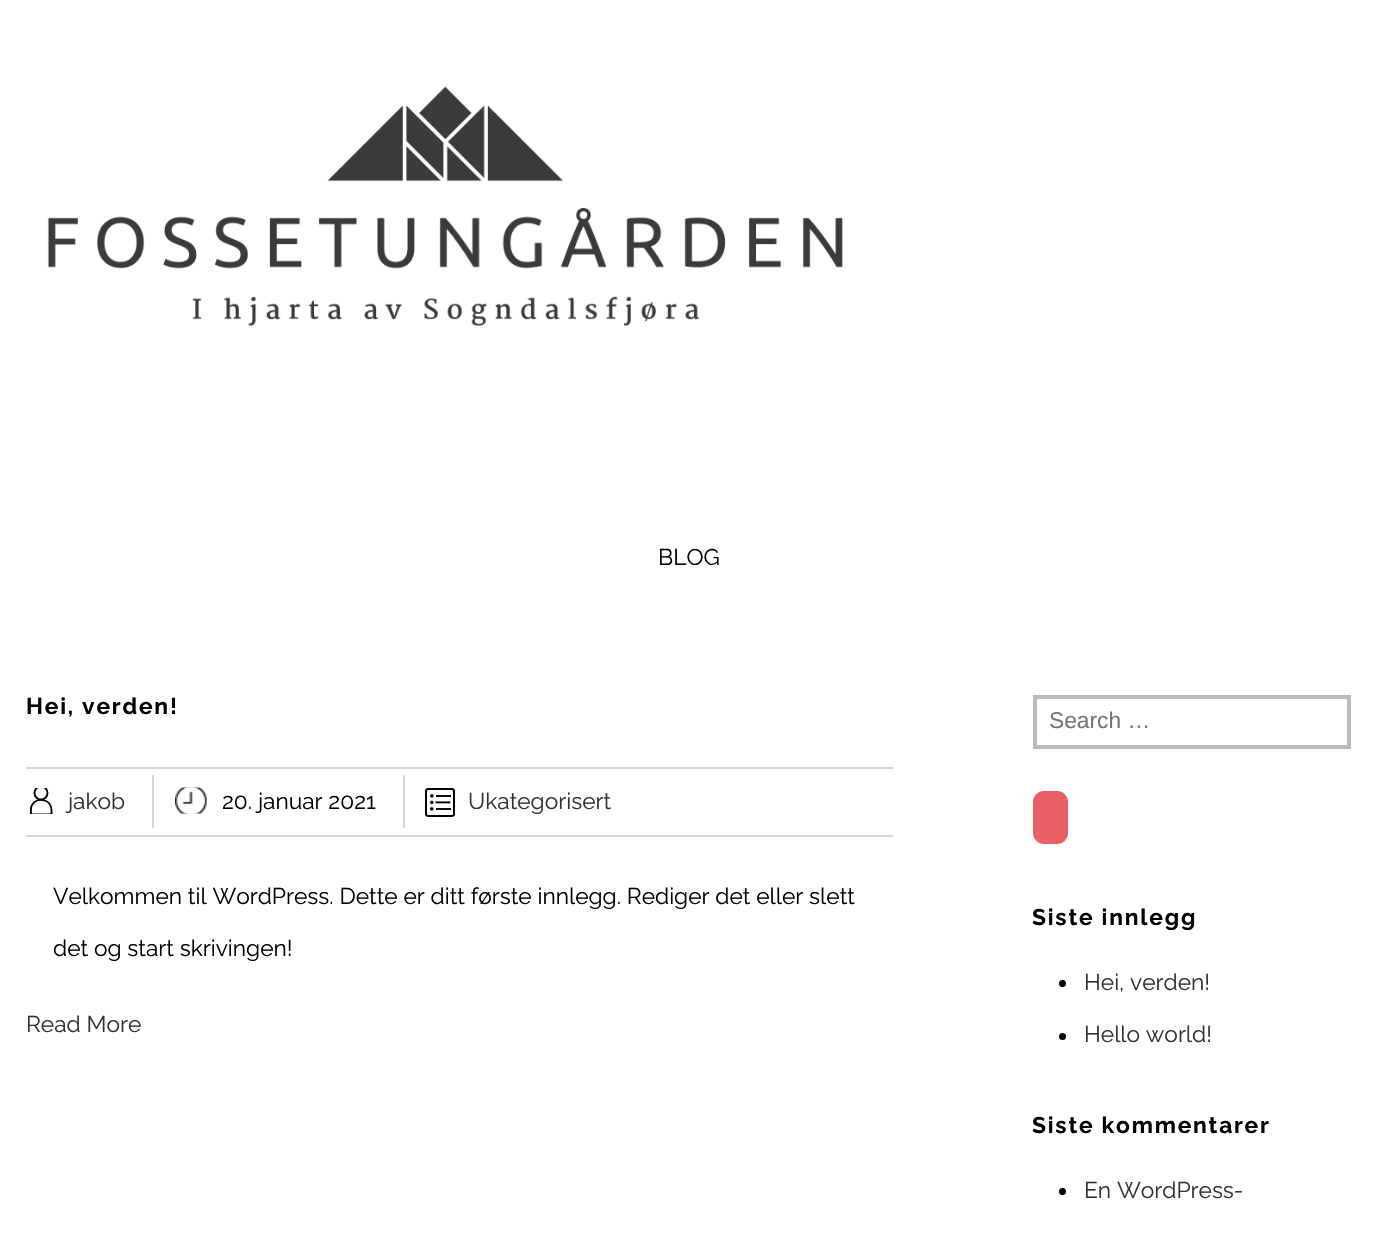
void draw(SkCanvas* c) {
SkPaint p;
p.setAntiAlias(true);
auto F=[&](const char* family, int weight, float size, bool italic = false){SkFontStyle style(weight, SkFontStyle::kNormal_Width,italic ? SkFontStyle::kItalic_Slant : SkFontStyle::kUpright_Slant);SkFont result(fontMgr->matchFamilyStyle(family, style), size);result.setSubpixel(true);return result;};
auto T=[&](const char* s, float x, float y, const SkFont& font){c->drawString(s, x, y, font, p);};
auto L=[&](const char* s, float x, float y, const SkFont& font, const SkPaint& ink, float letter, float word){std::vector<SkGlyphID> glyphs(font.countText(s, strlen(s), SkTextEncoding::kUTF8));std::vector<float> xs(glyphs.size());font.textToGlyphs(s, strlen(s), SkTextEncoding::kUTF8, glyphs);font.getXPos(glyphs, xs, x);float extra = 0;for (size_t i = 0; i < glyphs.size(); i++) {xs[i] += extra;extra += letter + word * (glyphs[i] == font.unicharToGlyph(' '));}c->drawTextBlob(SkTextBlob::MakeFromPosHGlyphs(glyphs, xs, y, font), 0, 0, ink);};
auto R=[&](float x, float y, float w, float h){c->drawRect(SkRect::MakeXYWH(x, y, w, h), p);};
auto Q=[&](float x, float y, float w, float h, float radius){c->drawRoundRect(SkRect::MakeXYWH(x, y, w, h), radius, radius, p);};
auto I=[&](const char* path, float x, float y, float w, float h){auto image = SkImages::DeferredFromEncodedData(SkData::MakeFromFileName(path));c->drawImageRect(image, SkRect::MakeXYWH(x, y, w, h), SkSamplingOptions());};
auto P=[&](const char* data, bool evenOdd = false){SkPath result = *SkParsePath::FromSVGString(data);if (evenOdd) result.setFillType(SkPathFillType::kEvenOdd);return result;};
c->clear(0xffffffff);
I("1.png",47,86,796,240);
auto f1 = F("Raleway",400,22.75);
p.setColor(0xff000000);
T("BLOG",658,565,f1);
auto f2 = F("Raleway",700,22.75);
L("Hei, verden!",26,714,f2,p,1.8,0);
p.setColor(0xffd6d6d6);
R(26,767,867,2);
R(26,835,867,2);
R(152,775,2,53);
p.setColor(0xff303030);
T("jakob",68,809,f1);
c->save();
c->clipRect(SkRect::MakeXYWH(26,788,30,26));
p.setStroke(true);
p.setStrokeWidth(1.9);
p.setColor(0xff000000);
c->drawCircle(41,793,6.5,p);
p.setStrokeJoin(SkPaint::kRound_Join);
c->drawPath(P("M51.5 810c0-11-15.5-14-20-4c-1 2.5-.5 5.5-.5 8.5h20.5z"),p);
c->restore();
p.setStroke(false);
p.setColor(0xffd6d6d6);
R(403,775,2,53);
I("2.png",175,787,32,27);
p.setColor(0xff000000);
T("20. januar 2021",222,809,f1);
I("3.png",425,788,30,29);
p.setColor(0xff303030);
T("Ukategorisert",468,809,f1);
p.setColor(0xff000000);
T("Velkommen til WordPress. Dette er ditt første innlegg. Rediger det eller slett",53,904,f1);
T("det og start skrivingen!",53,956,f1);
p.setColor(0xff303030);
T("Read More",26,1032,f1);
p.setStroke(true);
p.setStrokeWidth(4);
p.setStrokeJoin(SkPaint::kMiter_Join);
p.setColor(0xffbbbbbb);
c->drawRect(SkRect::MakeXYWH(1035,697,314,50),p);
auto f3 = F("Liberation Sans",400,22.75);
p.setStroke(false);
p.setColor(0xff757575);
T("Search …",1049,728,f3);
p.setColor(0xffe76165);
Q(1033,791,35,53,11);
p.setColor(0xff000000);
L("Siste innlegg",1032,925,f2,p,1.8,0);
c->drawCircle(1062.5,983.5,3.5,p);
p.setColor(0xff303030);
T("Hei, verden!",1084,990,f1);
p.setColor(0xff000000);
c->drawCircle(1062.5,1036.5,3.5,p);
p.setColor(0xff303030);
T("Hello world!",1084,1042,f1);
p.setColor(0xff000000);
L("Siste kommentarer",1032,1133,f2,p,1.8,0);
c->drawCircle(1062.5,1191.5,3.5,p);
p.setColor(0xff303030);
T("En WordPress-",1084,1198,f1);
}
